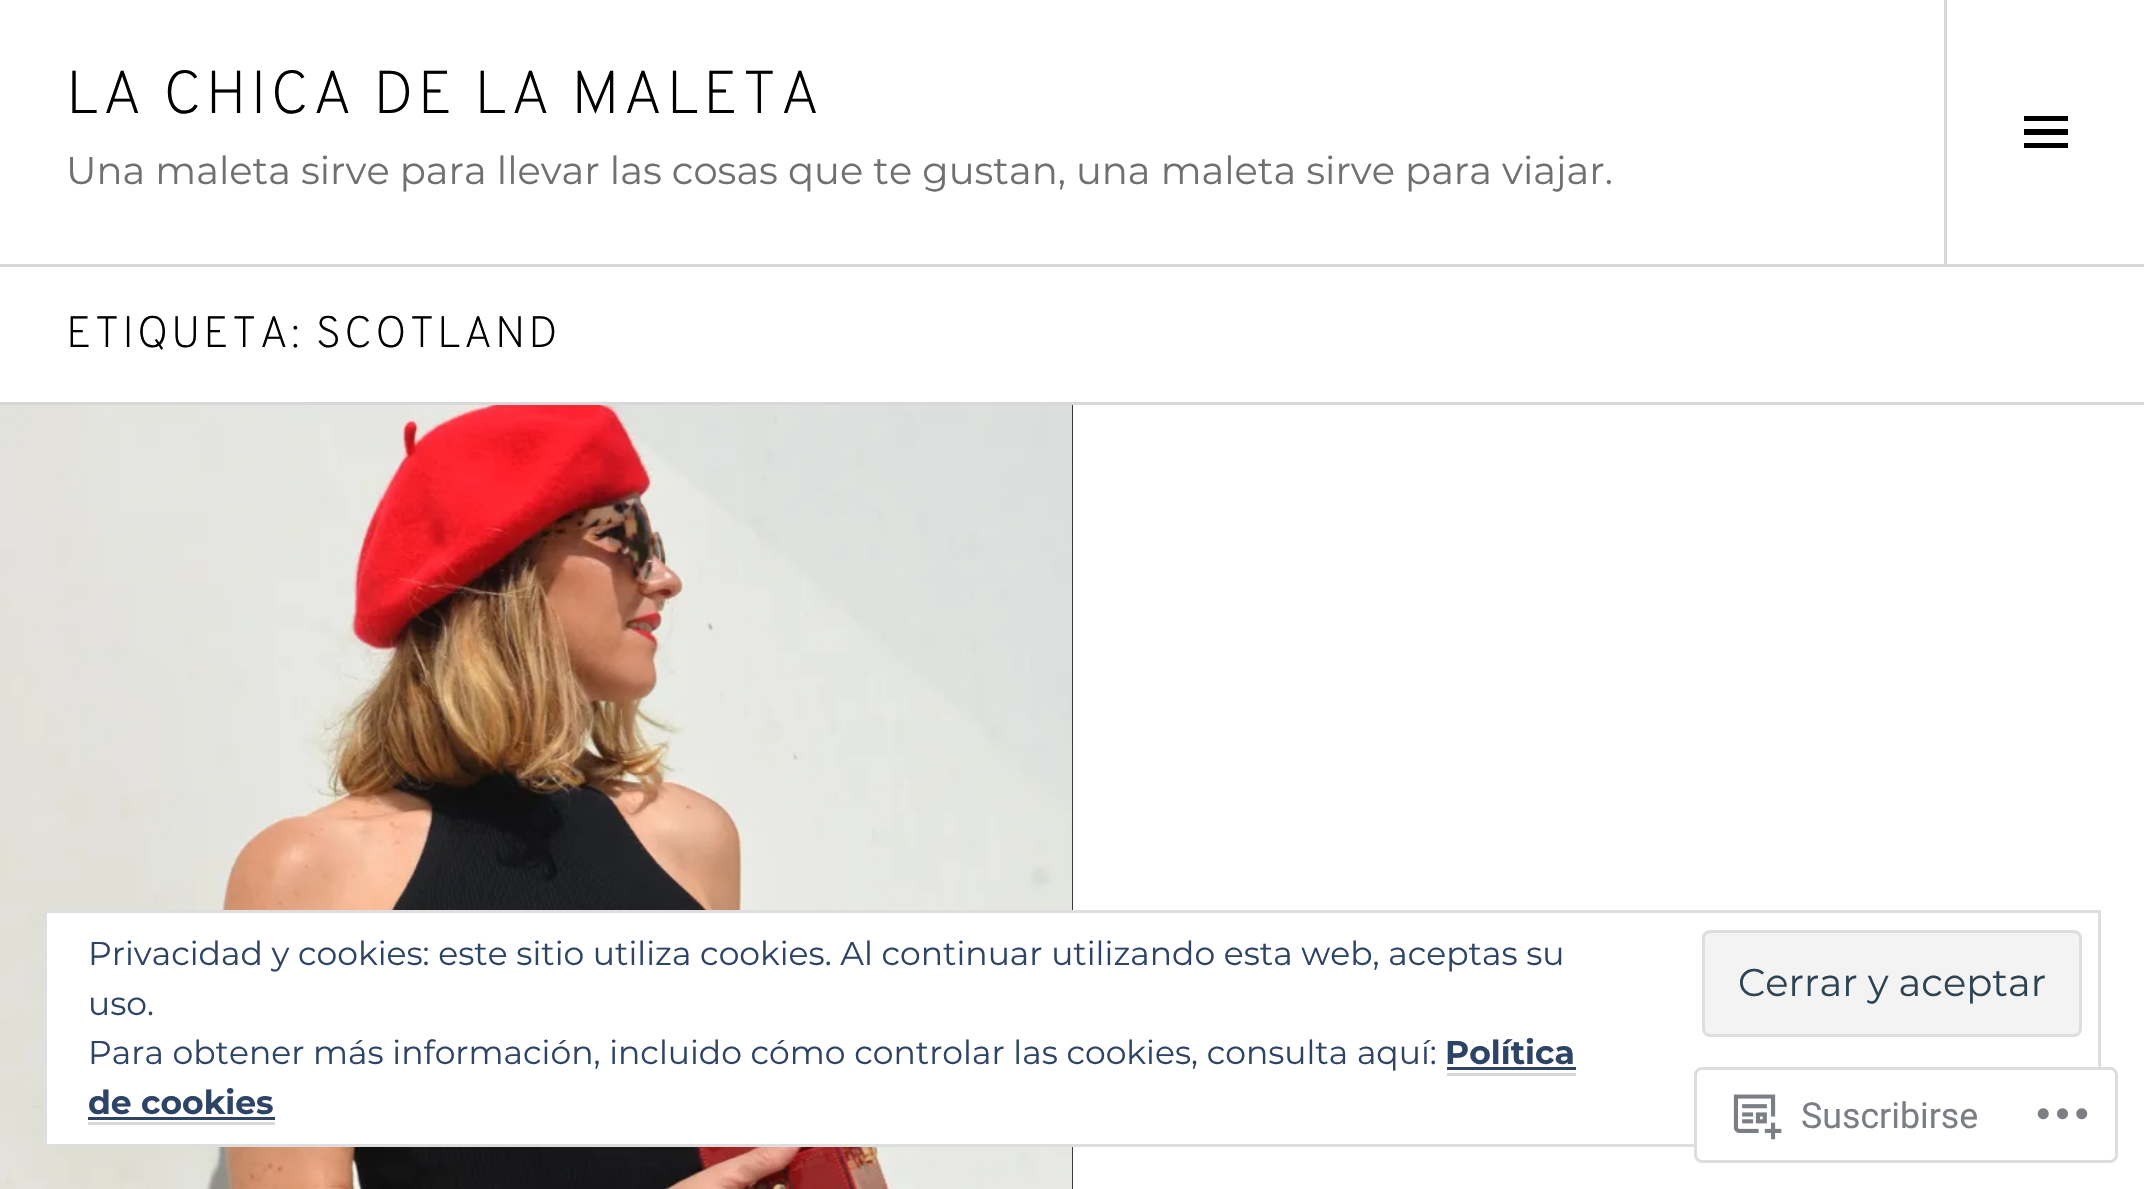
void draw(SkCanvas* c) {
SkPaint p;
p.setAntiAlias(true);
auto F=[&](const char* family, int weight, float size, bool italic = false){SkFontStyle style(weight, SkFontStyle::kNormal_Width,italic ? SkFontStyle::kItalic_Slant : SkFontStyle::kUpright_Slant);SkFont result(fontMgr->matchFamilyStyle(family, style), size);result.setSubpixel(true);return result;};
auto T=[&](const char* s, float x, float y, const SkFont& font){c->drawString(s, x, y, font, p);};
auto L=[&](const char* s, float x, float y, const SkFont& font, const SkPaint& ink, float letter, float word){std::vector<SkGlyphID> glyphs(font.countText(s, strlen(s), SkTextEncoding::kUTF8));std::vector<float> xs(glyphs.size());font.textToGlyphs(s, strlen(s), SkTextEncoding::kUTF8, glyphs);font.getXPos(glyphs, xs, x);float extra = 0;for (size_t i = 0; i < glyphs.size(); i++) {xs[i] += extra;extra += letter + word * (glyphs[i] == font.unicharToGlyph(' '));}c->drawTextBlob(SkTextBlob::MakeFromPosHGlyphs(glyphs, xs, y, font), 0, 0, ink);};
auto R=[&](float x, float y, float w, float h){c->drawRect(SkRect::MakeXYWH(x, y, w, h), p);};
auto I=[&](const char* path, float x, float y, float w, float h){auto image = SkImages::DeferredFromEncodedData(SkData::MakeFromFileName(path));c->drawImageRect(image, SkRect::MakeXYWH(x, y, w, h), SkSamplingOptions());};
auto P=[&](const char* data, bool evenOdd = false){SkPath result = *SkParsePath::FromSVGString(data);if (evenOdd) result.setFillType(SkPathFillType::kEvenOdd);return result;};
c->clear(0xffffffff);
p.setColor(0xffd8d8d8);
R(0,264,2144,3);
auto f1 = F("Overpass",200,60.5);
p.setColor(0xff000000);
L("LA CHICA DE LA MALETA",66,113,f1,p,3.75,0);
auto f2 = F("Montserrat",400,38.5);
p.setColor(0xff707070);
T("Una maleta sirve para llevar las cosas que te gustan, una maleta sirve para viajar.",66,184,f2);
p.setColor(0xffd8d8d8);
R(1944,0,3,264);
p.setColor(0xff000000);
c->drawPath(P("M2024 148v-5h44v5zm0-32h44v5h-44zm0 19v-6h44v6z"),p);
p.setColor(0xffd8d8d8);
R(0,402,2144,3);
auto f3 = F("Overpass",200,44);
p.setColor(0xff000000);
L("ETIQUETA: SCOTLAND",66,347,f3,p,2.75,0);
R(1072,405,1,784);
I("1.png",0,405,1073,784);
p.setColor(0xffffffff);
R(47,913,1026,231);
p.setStroke(true);
p.setStrokeWidth(3);
p.setColor(0xffdedede);
c->drawRect(SkRect::MakeXYWH(45.5,911.5,2054,234),p);
auto f4 = F("Montserrat",400,33);
p.setStroke(false);
p.setColor(0xff2e4467);
T("Privacidad y cookies: este sitio utiliza cookies. Al continuar utilizando esta web, aceptas su",88,965,f4);
p.setColor(0xfff3f3f3);
c->drawRoundRect(SkRect::MakeXYWH(1703.5,931.5,377,104),6.5,6.5,p);
p.setStroke(true);
p.setColor(0xffdedede);
c->drawRoundRect(SkRect::MakeXYWH(1703.5,931.5,377,104),6.5,6.5,p);
p.setStroke(false);
p.setColor(0xff2e4453);
T("Cerrar y aceptar",1738,996,f2);
p.setColor(0xff2e4467);
T("uso.",88,1015,f4);
T("Para obtener más información, incluido cómo controlar las cookies, consulta aquí:",88,1064,f4);
auto f5 = F("Montserrat",700,33);
T("Política",1445,1064,f5);
p.setColor(0xffd8d8d8);
R(1447,1073,129,3);
p.setColor(0xff2e4467);
R(1447,1067,129,3);
T("de cookies",88,1114,f5);
p.setColor(0xffd8d8d8);
R(88,1122,187,3);
p.setColor(0xff2e4467);
R(88,1117,187,3);
p.setColor(0xfaffffff);
c->drawRoundRect(SkRect::MakeXYWH(1695.5,1068.5,421,93),6.5,6.5,p);
p.setStroke(true);
p.setColor(0xffdddddf);
c->drawRoundRect(SkRect::MakeXYWH(1695.5,1068.5,421,93),6.5,6.5,p);
I("2.png",1733,1094,49,46);
auto f6 = F("Roboto",400,35.75);
p.setStroke(false);
p.setColor(0xff7b7f85);
T("Suscribirse",1801,1128,f6);
I("3.png",2037,1108,51,12);
}
